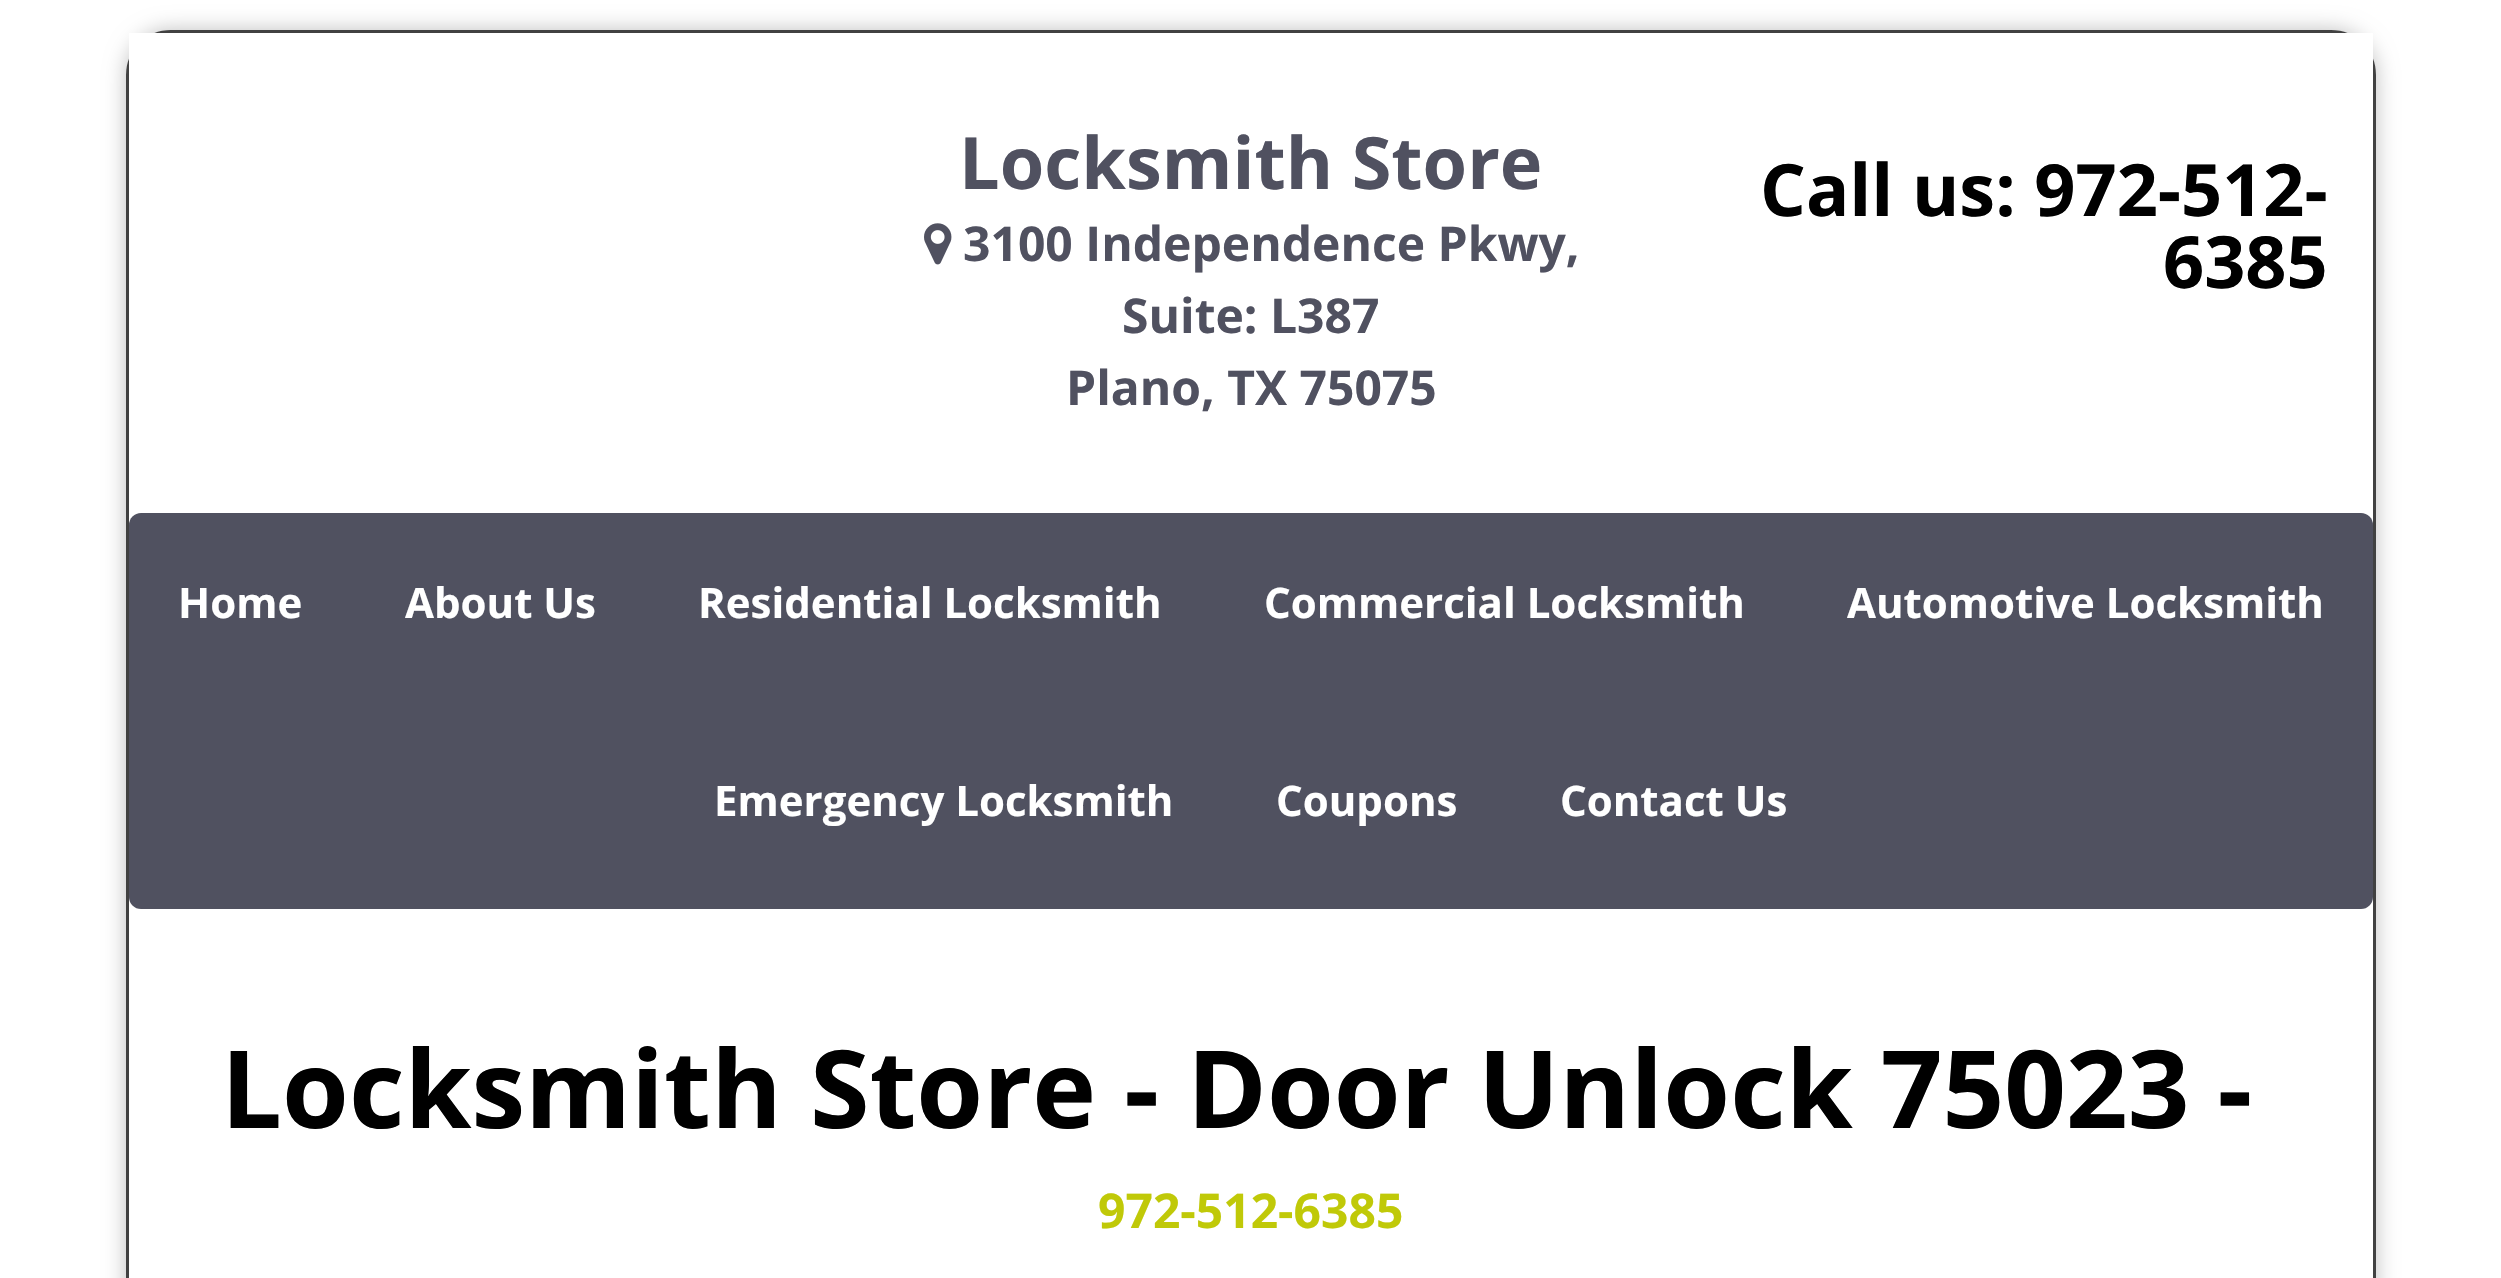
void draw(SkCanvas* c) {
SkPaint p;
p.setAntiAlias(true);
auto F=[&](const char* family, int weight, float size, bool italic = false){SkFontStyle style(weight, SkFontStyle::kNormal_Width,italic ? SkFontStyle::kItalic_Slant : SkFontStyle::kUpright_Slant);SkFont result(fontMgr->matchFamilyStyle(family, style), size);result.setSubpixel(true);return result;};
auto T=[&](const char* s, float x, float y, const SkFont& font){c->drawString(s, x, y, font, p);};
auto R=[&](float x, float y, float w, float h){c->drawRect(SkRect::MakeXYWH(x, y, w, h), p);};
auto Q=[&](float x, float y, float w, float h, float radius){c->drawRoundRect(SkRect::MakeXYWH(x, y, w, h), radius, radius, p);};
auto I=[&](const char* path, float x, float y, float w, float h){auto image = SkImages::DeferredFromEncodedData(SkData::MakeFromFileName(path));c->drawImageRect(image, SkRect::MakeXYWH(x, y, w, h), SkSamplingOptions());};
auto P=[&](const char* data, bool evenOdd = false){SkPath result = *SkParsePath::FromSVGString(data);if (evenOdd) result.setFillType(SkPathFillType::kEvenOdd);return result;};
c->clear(0xffffffff);
c->save();
c->clipPath(P("M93 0h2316v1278h-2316zm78 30h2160c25 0 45 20 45 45v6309h-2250v-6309c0-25 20-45 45-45z",true),true);
p.setColor(0xffbfbfbf);
p.setMaskFilter(SkMaskFilter::MakeBlur(kNormal_SkBlurStyle, 10.5));
c->drawRoundRect(SkRect::MakeXYWH(126,30,2250,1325),45,45,p);
p.setMaskFilter(nullptr);
c->restore();
p.setStroke(true);
p.setStrokeWidth(3);
p.setColor(0xff414141);
c->drawPath(P("M171 31.5h2160c24 0 43.5 19.5 43.5 43.5v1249.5h-2247v-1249.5c0-24 19.5-43.5 43.5-43.5z"),p);
p.setStroke(false);
p.setColor(0xffffffff);
R(129,33,2244,42);
auto f1 = F("Open Sans",700,72);
p.setColor(0xff505160);
T("Locksmith Store",959,189,f1);
I("1.png",924,223,28,42);
auto f2 = F("Open Sans",700,48);
T("3100 Independence Pkwy,",963,261,f2);
T("Suite: L387",1122,333,f2);
T("Plano, TX 75075",1066,405,f2);
p.setColor(0xff000000);
T("Call us: 972-512-",1760,216,f1);
T("6385",2163,288,f1);
p.setColor(0xff505160);
Q(129,513,2244,396,12);
auto f3 = F("Open Sans",700,42);
p.setColor(0xffffffff);
T("Home",178,618,f3);
T("About Us",405,618,f3);
T("Residential Locksmith",698,618,f3);
T("Commercial Locksmith",1264,618,f3);
T("Automotive Locksmith",1847,618,f3);
T("Emergency Locksmith",714,816,f3);
T("Coupons",1276,816,f3);
T("Contact Us",1560,816,f3);
auto f4 = F("Open Sans",700,108);
p.setColor(0xff000000);
T("Locksmith Store - Door Unlock 75023 -",221,1128,f4);
p.setColor(0xffc0c908);
T("972-512-6385",1098,1228,f2);
}
